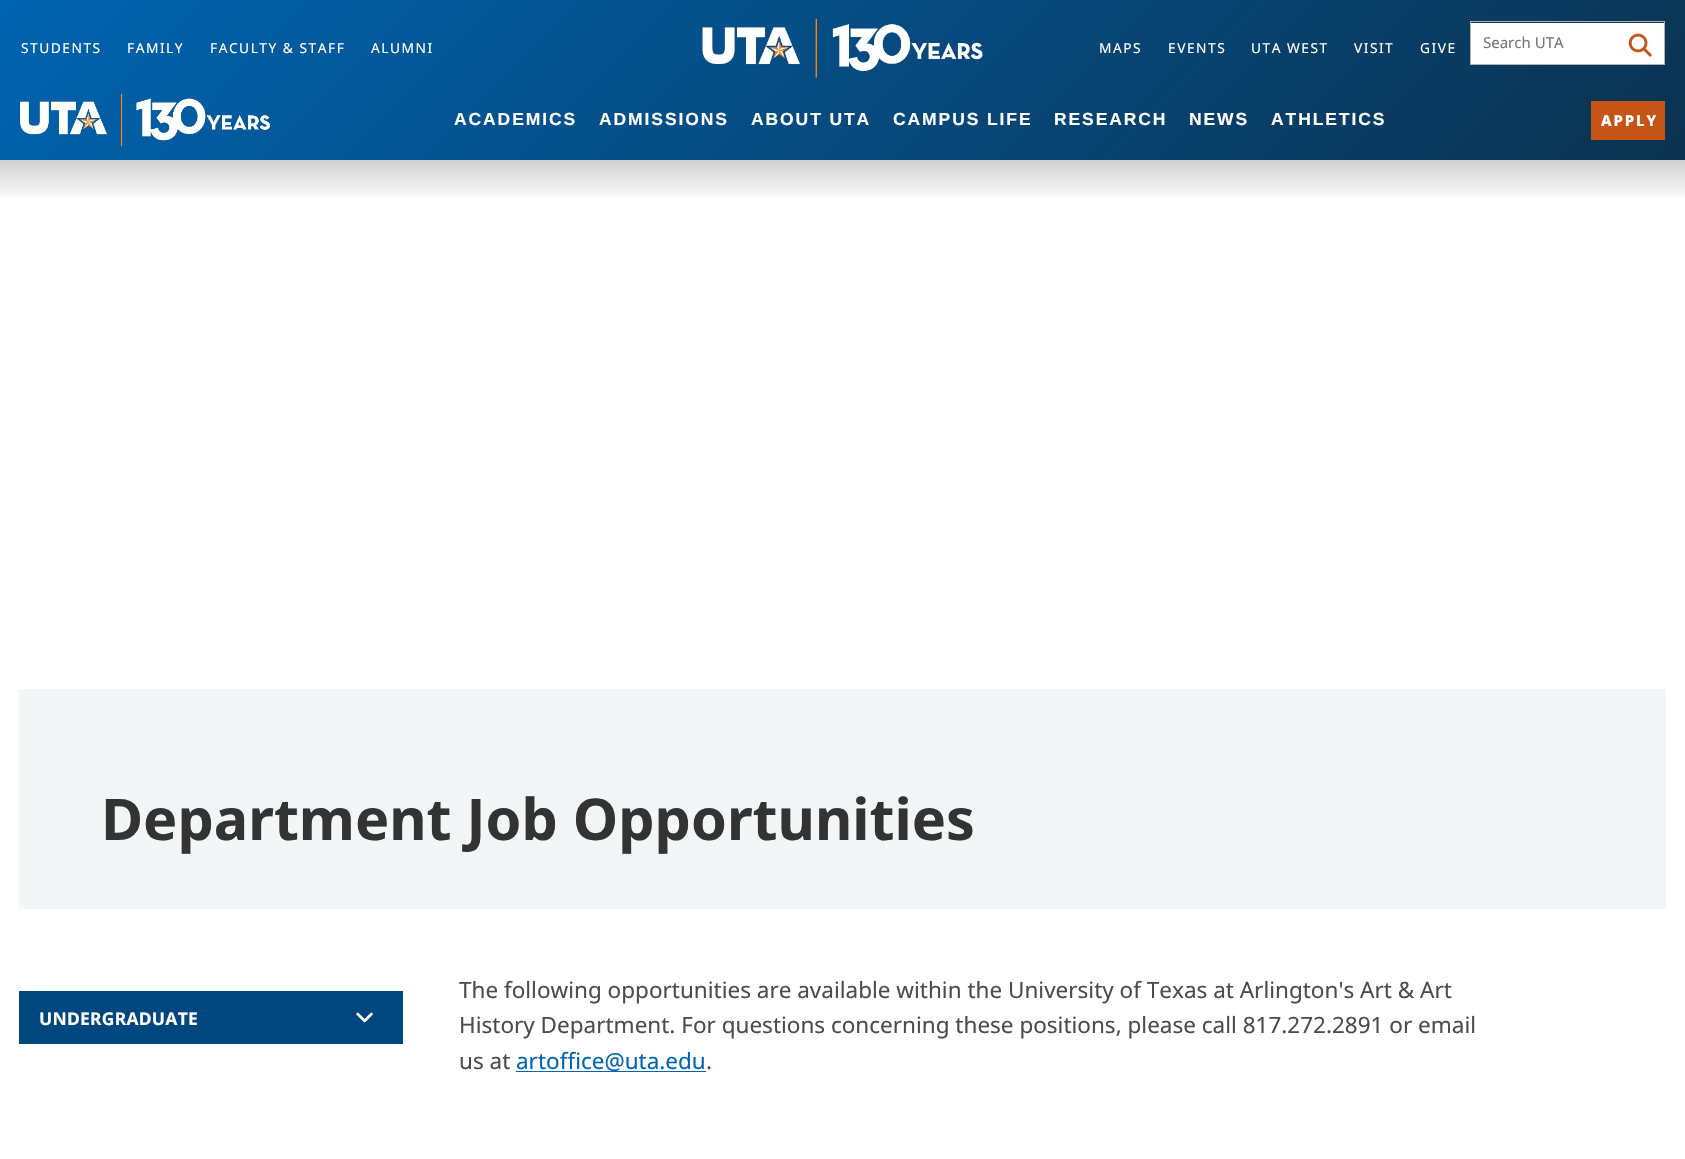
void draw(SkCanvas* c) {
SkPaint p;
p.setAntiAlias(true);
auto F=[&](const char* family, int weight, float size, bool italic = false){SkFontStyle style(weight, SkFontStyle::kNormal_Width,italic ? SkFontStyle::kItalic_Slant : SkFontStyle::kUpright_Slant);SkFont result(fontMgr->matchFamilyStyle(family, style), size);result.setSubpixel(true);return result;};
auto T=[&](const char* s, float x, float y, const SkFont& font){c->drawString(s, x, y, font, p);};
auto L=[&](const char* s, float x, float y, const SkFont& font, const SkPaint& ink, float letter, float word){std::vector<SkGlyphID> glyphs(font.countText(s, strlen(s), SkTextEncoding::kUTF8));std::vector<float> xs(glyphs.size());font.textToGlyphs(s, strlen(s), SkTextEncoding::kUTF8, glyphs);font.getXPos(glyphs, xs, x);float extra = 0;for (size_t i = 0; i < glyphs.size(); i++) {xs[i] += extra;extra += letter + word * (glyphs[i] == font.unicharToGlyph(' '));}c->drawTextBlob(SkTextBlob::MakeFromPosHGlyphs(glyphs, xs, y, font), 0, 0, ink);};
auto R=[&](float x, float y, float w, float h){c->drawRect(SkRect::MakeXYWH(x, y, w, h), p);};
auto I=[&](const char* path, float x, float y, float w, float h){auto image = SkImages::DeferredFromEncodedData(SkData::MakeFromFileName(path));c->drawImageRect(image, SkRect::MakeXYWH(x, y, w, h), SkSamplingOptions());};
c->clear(0xffffffff);
{
const SkColor colors[] = {0xff0064b1,0xff0b3250};
const float stops[] = {0,1};
const SkPoint ends[] = {{381,-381}, {1304,541}};
p.setShader(SkGradientShader::MakeLinear(ends, colors, stops, 2, SkTileMode::kClamp));
p.setAlpha(255);
}
R(0,0,1685,160);
auto f1 = F("Noto Sans",400,13.75);
p.setShader(nullptr);
p.setColor(0xffffffff);
L("STUDENTS",21,53,f1,p,1.5,0);
L("FAMILY",127,53,f1,p,1.5,0);
L("FACULTY & STAFF",210,53,f1,p,1.5,0);
L("ALUMNI",371,53,f1,p,1.5,0);
I("1.png",702,18,281,60);
L("MAPS",1099,53,f1,p,1.5,0);
L("EVENTS",1168,53,f1,p,1.5,0);
L("UTA WEST",1251,53,f1,p,1.5,0);
L("VISIT",1354,53,f1,p,1.5,0);
L("GIVE",1420,53,f1,p,1.5,0);
p.setStroke(true);
p.setStrokeWidth(1);
p.setColor(0xffb2b2b2);
c->drawRect(SkRect::MakeXYWH(1470.5,21.5,194,43),p);
p.setStroke(false);
p.setColor(0xffffffff);
R(1471,23,193,41);
auto f2 = F("Noto Sans",400,15);
p.setColor(0xff757575);
T("Search UTA",1483,48,f2);
I("2.png",1628,33,24,24);
I("3.png",20,93,250,54);
auto f3 = F("Liberation Sans",700,17.5);
p.setColor(0xffffffff);
L("ACADEMICS",454,125,f3,p,1.9,0);
L("ADMISSIONS",599,125,f3,p,1.9,0);
L("ABOUT UTA",751,125,f3,p,1.9,0);
L("CAMPUS LIFE",893,125,f3,p,1.9,0);
L("RESEARCH",1054,125,f3,p,1.9,0);
L("NEWS",1189,125,f3,p,1.9,0);
L("ATHLETICS",1271,125,f3,p,1.9,0);
{
const SkColor colors[] = {0xffc45517,0xffcc4b14};
const float stops[] = {.52,1};
const SkPoint ends[] = {{1591,140}, {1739,140}};
p.setShader(SkGradientShader::MakeLinear(ends, colors, stops, 2, SkTileMode::kClamp));
p.setAlpha(255);
}
R(1591,101,74,39);
auto f4 = F("Noto Sans",800,15);
p.setShader(nullptr);
p.setColor(0xffffffff);
L("APPLY",1601,126,f4,p,1.9,0);
{
const SkColor colors[] = {0xff1f1f1f,0x001f1f1f};
const float stops[] = {0,1};
const SkPoint ends[] = {{843,0}, {843,202}};
p.setShader(SkGradientShader::MakeLinear(ends, colors, stops, 2, SkTileMode::kClamp));
p.setAlpha(255);
}
R(0,160,1685,38);
p.setShader(nullptr);
p.setColor(0xfff3f6f6);
R(19,689,1647,220);
auto f5 = F("Noto Sans",700,57.5);
p.setColor(0xff333333);
T("Department Job Opportunities",101,840,f5);
p.setColor(0xff00467f);
R(19,991,384,53);
auto f6 = F("Noto Sans",700,17.5);
p.setColor(0xffffffff);
L("UNDERGRADUATE",39,1025,f6,p,.25,0);
I("4.png",356,1012,17,11);
auto f7 = F("Noto Sans",400,22.5);
p.setColor(0xff4c4c4c);
T("The following opportunities are available within the University of Texas at Arlington's Art & Art",459,998,f7);
T("History Department. For questions concerning these positions, please call 817.272.2891 or email",459,1033,f7);
T("us at",459,1069,f7);
p.setColor(0xff0064b1);
T("artoffice@uta.edu",516,1069,f7);
R(516,1071,190,1);
p.setColor(0xff4c4c4c);
T(".",706,1069,f7);
}
